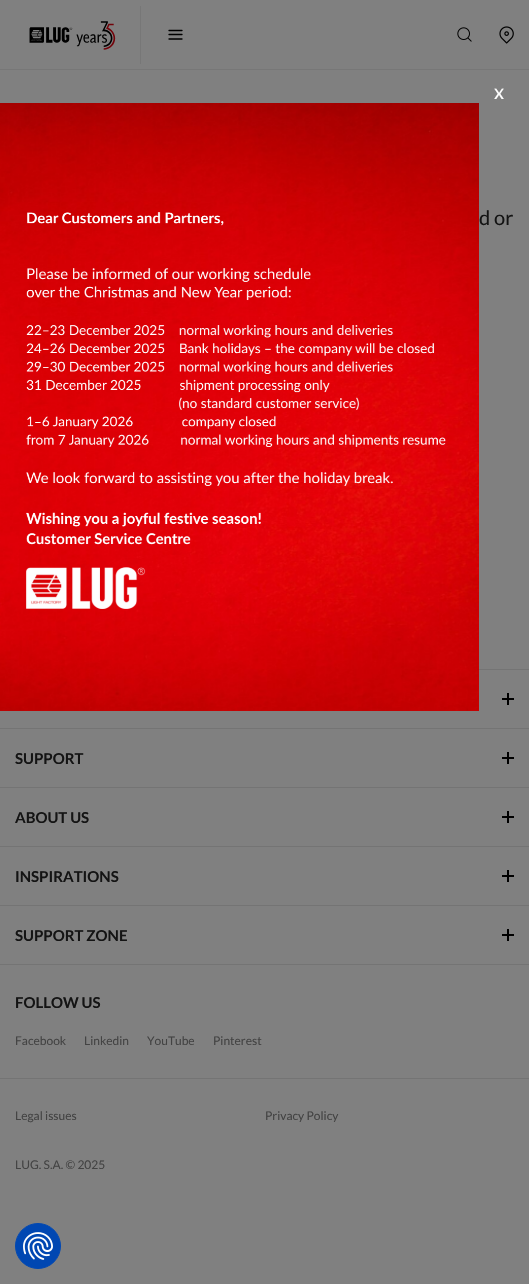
void draw(SkCanvas* c) {
SkPaint p;
p.setAntiAlias(true);
auto F=[&](const char* family, int weight, float size, bool italic = false){SkFontStyle style(weight, SkFontStyle::kNormal_Width,italic ? SkFontStyle::kItalic_Slant : SkFontStyle::kUpright_Slant);SkFont result(fontMgr->matchFamilyStyle(family, style), size);result.setSubpixel(true);return result;};
auto T=[&](const char* s, float x, float y, const SkFont& font){c->drawString(s, x, y, font, p);};
auto R=[&](float x, float y, float w, float h){c->drawRect(SkRect::MakeXYWH(x, y, w, h), p);};
auto I=[&](const char* path, float x, float y, float w, float h){auto image = SkImages::DeferredFromEncodedData(SkData::MakeFromFileName(path));c->drawImageRect(image, SkRect::MakeXYWH(x, y, w, h), SkSamplingOptions());};
auto P=[&](const char* data, bool evenOdd = false){SkPath result = *SkParsePath::FromSVGString(data);if (evenOdd) result.setFillType(SkPathFillType::kEvenOdd);return result;};
c->clear(0xff808080);
p.setColor(0xff777777);
R(0,69,529,1);
R(140,6,1,58);
I("1.png",29,21,87,29);
p.setStroke(true);
p.setStrokeWidth(1.3);
p.setStrokeCap(SkPaint::kRound_Cap);
p.setColor(0xff000000);
c->drawPath(P("M169 30.5h13m-13 4h13m-13 4.5h13"),p);
I("2.png",457,27,15,15);
I("3.png",499,26,15,18);
auto f1 = F("Lato",400,20);
p.setStroke(false);
p.setColor(0xffffffff);
T("x",494,99,f1);
I("4.png",0,103,479,608);
p.setColor(0xff141414);
T("d or",479,225,f1);
p.setColor(0xff747474);
R(479,669,50,1);
p.setColor(0xff000000);
R(507,693,2,12);
R(502,698,12,2);
p.setColor(0xff747474);
R(0,728,529,1);
auto f2 = F("Lato",700,15);
p.setColor(0xff141414);
T("SUPPORT",15,764,f2);
p.setColor(0xff000000);
R(507,752,2,12);
R(502,757,12,2);
p.setColor(0xff747474);
R(0,787,529,1);
p.setColor(0xff141414);
T("ABOUT US",15,823,f2);
p.setColor(0xff000000);
R(507,811,2,12);
R(502,816,12,2);
p.setColor(0xff747474);
R(0,846,529,1);
p.setColor(0xff141414);
T("INSPIRATIONS",15,882,f2);
p.setColor(0xff000000);
R(507,870,2,12);
R(502,875,12,2);
p.setColor(0xff747474);
R(0,905,529,1);
p.setColor(0xff141414);
T("SUPPORT ZONE",15,941,f2);
p.setColor(0xff000000);
R(507,929,2,12);
R(502,934,12,2);
p.setColor(0xff747474);
R(0,964,529,1);
p.setColor(0xff141414);
T("FOLLOW US",15,1008,f2);
auto f3 = F("Lato",400,12);
p.setColor(0xff434343);
T("Facebook",15,1045,f3);
T("Linkedin",84,1045,f3);
T("YouTube",147,1045,f3);
T("Pinterest",213,1045,f3);
p.setColor(0xff747474);
R(0,1078,529,1);
p.setColor(0xff434343);
T("Legal issues",15,1120,f3);
T("Privacy Policy",265,1120,f3);
T("LUG. S.A. © 2025",15,1169,f3);
p.setColor(0xff0047b2);
c->drawCircle(38,1246,22.5,p);
p.setStroke(true);
p.setStrokeWidth(1);
p.setStrokeCap(SkPaint::kButt_Cap);
c->drawCircle(38,1246,22.5,p);
I("5.png",23,1232,30,28);
}
